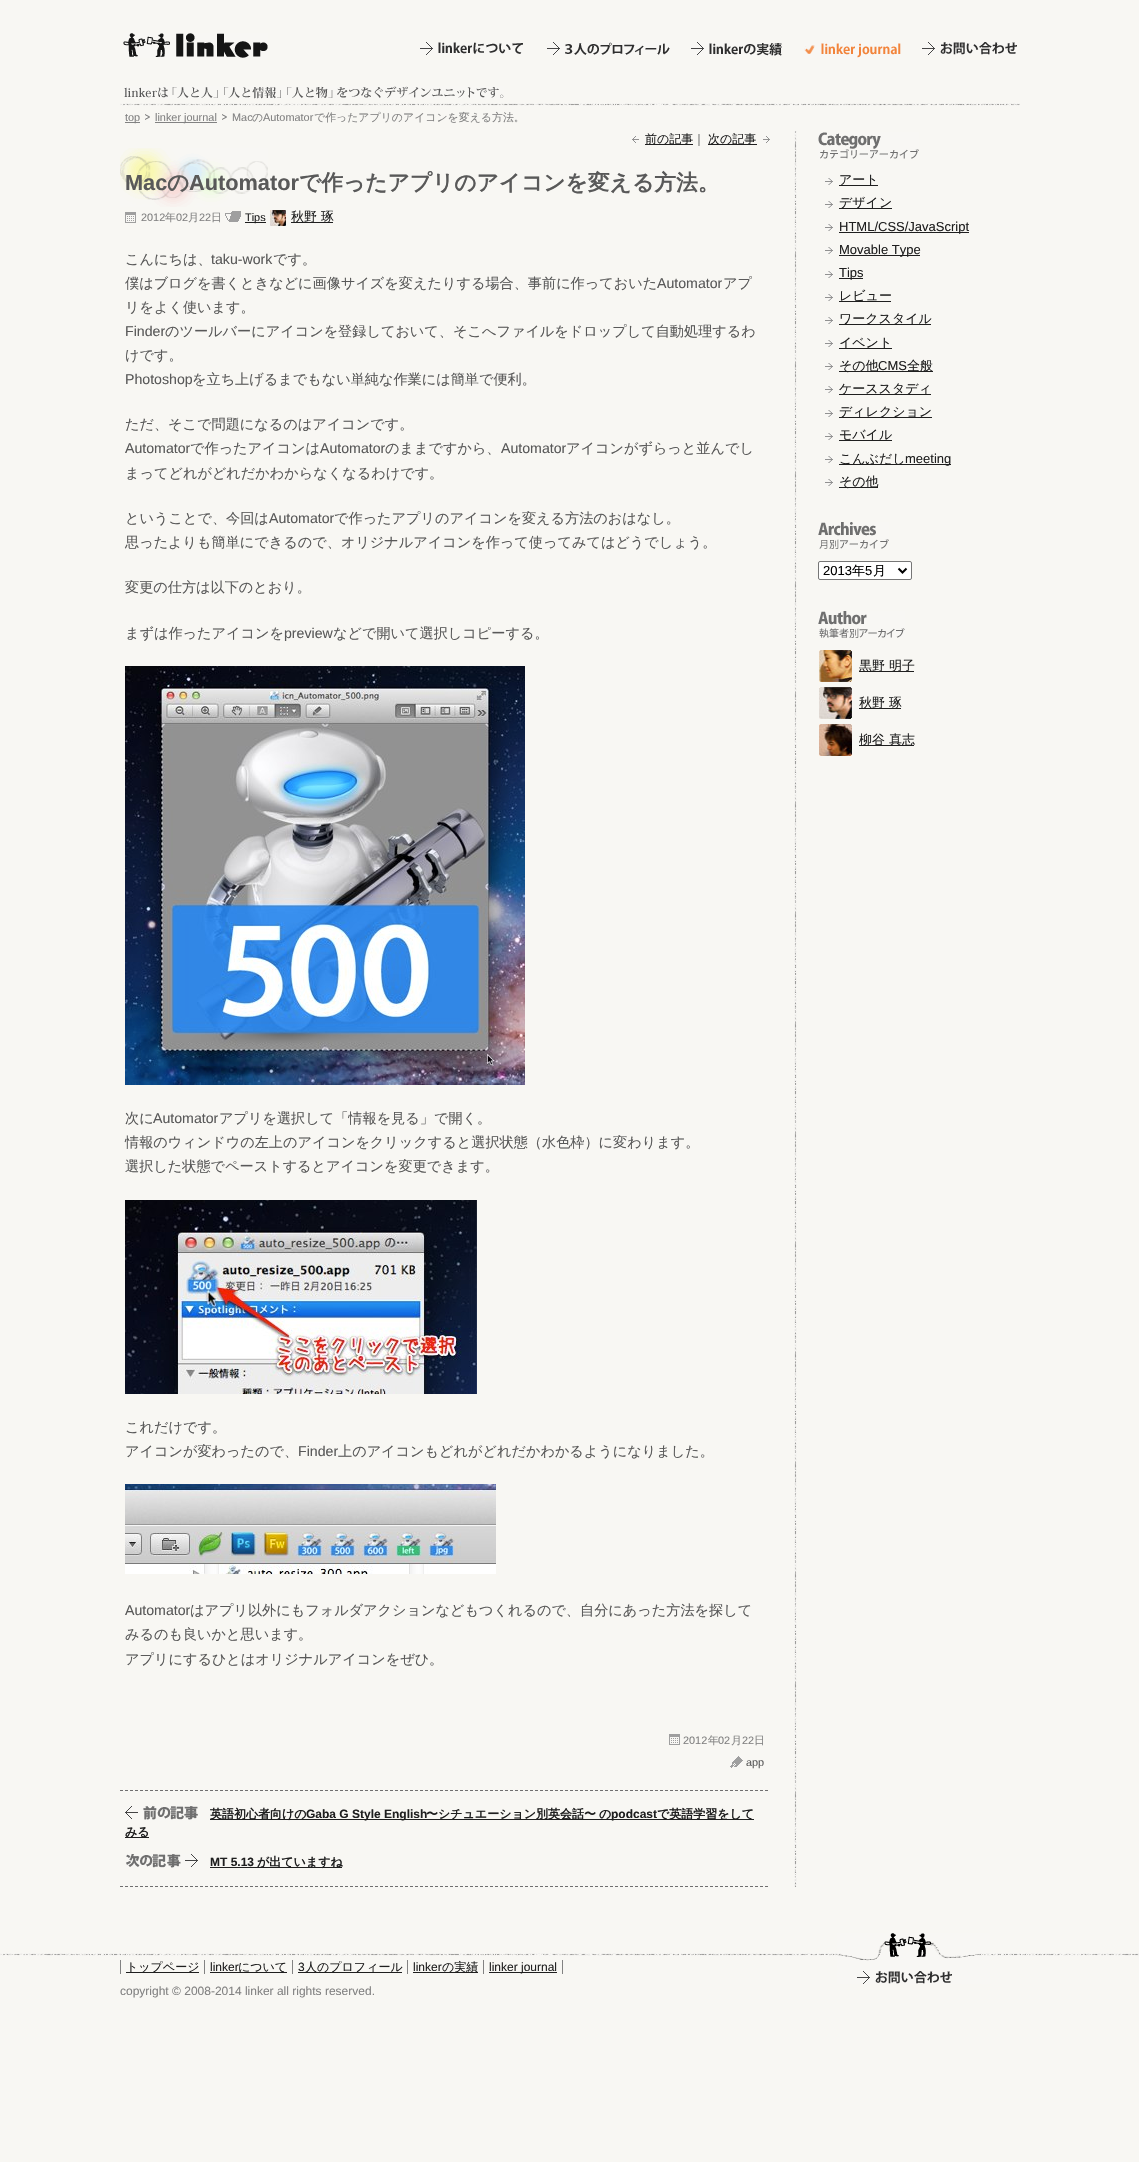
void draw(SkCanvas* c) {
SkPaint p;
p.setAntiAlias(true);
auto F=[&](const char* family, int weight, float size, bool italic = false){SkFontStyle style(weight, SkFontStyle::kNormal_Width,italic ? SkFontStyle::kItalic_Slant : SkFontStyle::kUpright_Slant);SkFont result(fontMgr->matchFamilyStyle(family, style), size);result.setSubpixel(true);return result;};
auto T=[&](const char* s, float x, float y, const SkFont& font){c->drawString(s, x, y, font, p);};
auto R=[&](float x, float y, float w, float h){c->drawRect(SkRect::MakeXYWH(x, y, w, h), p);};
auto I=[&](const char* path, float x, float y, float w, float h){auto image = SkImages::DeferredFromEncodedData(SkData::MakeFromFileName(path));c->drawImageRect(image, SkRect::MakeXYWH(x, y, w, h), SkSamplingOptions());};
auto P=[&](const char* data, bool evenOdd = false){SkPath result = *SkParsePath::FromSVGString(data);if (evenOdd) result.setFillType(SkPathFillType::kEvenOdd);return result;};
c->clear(0xfff8f7f3);
I("1.png",123,33,145,25);
I("2.png",420,42,103,13);
I("3.png",547,42,123,13);
I("4.png",691,42,91,14);
I("5.png",804,43,97,15);
I("6.png",922,42,95,13);
I("7.png",120,103,900,3);
I("8.png",124,86,380,13);
p.setColor(0xff828282);
R(125,122,15,1);
auto f1 = F("Liberation Sans",400,10.9);
T("top",125,121,f1);
I("9.png",145,114,5,6);
R(155,122,62,1);
T("linker journal",155,121,f1);
I("9.png",222,114,5,6);
T("Mac",232,121,f1);
auto f2 = F("WenQuanYi Zen Hei",500,10.9);
T("の",252,121,f2);
T("Automator",263,121,f1);
T("で作ったアプリのアイコンを変える方法。",314,121,f2);
I("10.png",794,131,3,1756);
I("11.png",632,136,7,7);
p.setColor(0xff1f1f1f);
R(645,144,48,1);
auto f3 = F("WenQuanYi Zen Hei",500,12);
T("前の記事",645,143,f3);
p.setColor(0xff595959);
T("｜",693,143,f3);
p.setColor(0xff1f1f1f);
R(708,144,49,1);
T("次の記事",708,143,f3);
I("12.png",763,136,7,7);
I("13.png",120,148,148,59);
auto f4 = F("Liberation Sans",700,21.75);
p.setColor(0xff595959);
T("Mac",125,190,f4);
auto f5 = F("WenQuanYi Zen Hei",700,21.75);
T("の",167,190,f5);
T("Automator",189,190,f4);
T("で作ったアプリのアイコンを変える方法。",299,190,f5);
I("14.png",125,212,11,11);
p.setColor(0xff828282);
T("2012",141,221,f1);
T("年",165,221,f2);
T("02",176,221,f1);
T("月",188,221,f2);
T("22",199,221,f1);
T("日",211,221,f2);
I("15.png",225,211,16,11);
p.setColor(0xff1f1f1f);
R(245,222,21,1);
T("Tips",245,221,f1);
I("16.png",270,210,16,16);
R(291,222,42,1);
auto f6 = F("WenQuanYi Zen Hei",500,13);
T("秋野 琢",291,221,f6);
auto f7 = F("WenQuanYi Zen Hei",500,14.15);
p.setColor(0xff595959);
T("こんにちは、",125,264,f7);
auto f8 = F("Liberation Sans",400,14.15);
T("taku-work",211,264,f8);
T("です。",273,264,f7);
T("僕はブログを書くときなどに画像サイズを変えたりする場合、事前に作っておいた",125,288,f7);
T("Automator",657,288,f8);
T("アプ",723,288,f7);
T("リをよく使います。",125,312,f7);
T("Finder",125,336,f8);
T("のツールバーにアイコンを登録しておいて、そこへファイルをドロップして自動処理するわ",165,336,f7);
T("けです。",125,360,f7);
T("Photoshop",125,384,f8);
T("を立ち上げるまでもない単純な作業には簡単で便利。",192,384,f7);
T("ただ、そこで問題になるのはアイコンです。",125,429,f7);
T("Automator",125,453,f8);
T("で作ったアイコンは",190,453,f7);
T("Automator",320,453,f8);
T("のままですから、",385,453,f7);
T("Automator",501,453,f8);
T("アイコンがずらっと並んでし",566,453,f7);
T("まってどれがどれだかわからなくなるわけです。",125,478,f7);
T("ということで、今回は",125,523,f7);
T("Automator",269,523,f8);
T("で作ったアプリのアイコンを変える方法のおはなし。",334,523,f7);
T("思ったよりも簡単にできるので、オリジナルアイコンを作って使ってみてはどうでしょう。",125,547,f7);
T("変更の仕方は以下のとおり。",125,592,f7);
T("まずは作ったアイコンを",125,638,f7);
T("preview",284,638,f8);
T("などで開いて選択しコピーする。",333,638,f7);
I("17.png",125,666,400,419);
T("次に",125,1123,f7);
T("Automator",153,1123,f8);
T("アプリを選択して「情報を見る」で開く。",219,1123,f7);
T("情報のウィンドウの左上のアイコンをクリックすると選択状態（水色枠）に変わります。",125,1147,f7);
T("選択した状態でペーストするとアイコンを変更できます。",125,1171,f7);
I("18.png",125,1200,352,194);
T("これだけです。",125,1432,f7);
T("アイコンが変わったので、",125,1456,f7);
T("Finder",298,1456,f8);
T("上のアイコンもどれがどれだかわかるようになりました。",338,1456,f7);
I("19.png",125,1484,371,90);
T("Automator",125,1615,f8);
T("はアプリ以外にもフォルダアクションなどもつくれるので、自分にあった方法を探して",190,1615,f7);
T("みるのも良いかと思います。",125,1639,f7);
T("アプリにするひとはオリジナルアイコンをぜひ。",125,1664,f7);
I("20.png",120,1790,648,1);
I("14.png",669,1734,11,11);
p.setColor(0xff828282);
T("2012",683,1744,f1);
T("年",708,1744,f2);
T("02",718,1744,f1);
T("月",731,1744,f2);
T("22",742,1744,f1);
T("日",754,1744,f2);
I("21.png",730,1756,13,12);
p.setColor(0xff595959);
T("app",746,1766,f1);
I("20.png",120,1886,648,1);
I("22.png",125,1806,73,14);
p.setColor(0xff1f1f1f);
R(210,1819,544,1);
auto f9 = F("WenQuanYi Zen Hei",700,12);
T("英語初心者向けの",210,1818,f9);
auto f10 = F("Liberation Sans",700,12);
T("Gaba G Style English",306,1818,f10);
T("〜シチュエーション別英会話〜",426,1818,f9);
T("の",599,1818,f9);
T("podcast",611,1818,f10);
T("で英語学習をして",657,1818,f9);
R(125,1837,24,1);
T("みる",125,1836,f9);
I("23.png",126,1854,72,14);
T("MT 5.13",210,1866,f10);
R(210,1867,132,1);
T("が出ていますね",257,1866,f9);
I("24.png",818,132,101,27);
I("25.png",825,178,8,7);
R(839,185,39,1);
T("アート",839,184,f6);
I("25.png",825,201,8,7);
R(839,208,53,1);
T("デザイン",839,207,f6);
I("25.png",825,224,8,7);
R(839,232,130,1);
auto f11 = F("Liberation Sans",400,13);
T("HTML/CSS/JavaScript",839,231,f11);
I("25.png",825,247,8,7);
R(839,255,81,1);
T("Movable Type",839,254,f11);
I("25.png",825,271,8,7);
R(839,278,24,1);
T("Tips",839,277,f11);
I("25.png",825,294,8,7);
R(839,301,52,1);
T("レビュー",839,300,f6);
I("25.png",825,317,8,7);
R(839,324,92,1);
T("ワークスタイル",839,323,f6);
I("25.png",825,340,8,7);
R(839,348,53,1);
T("イベント",839,347,f6);
I("25.png",825,363,8,7);
R(839,371,94,1);
T("その他",839,370,f6);
T("CMS",878,370,f11);
T("全般",907,370,f6);
I("25.png",825,386,8,7);
R(839,394,92,1);
T("ケーススタディ",839,393,f6);
I("25.png",825,410,8,7);
R(839,417,93,1);
T("ディレクション",839,416,f6);
I("25.png",825,433,8,7);
R(839,440,53,1);
T("モバイル",839,439,f6);
I("25.png",825,456,8,7);
R(839,464,112,1);
T("こんぶだし",839,463,f6);
T("meeting",905,463,f11);
I("25.png",825,479,8,7);
R(839,487,39,1);
T("その他",839,486,f6);
I("26.png",818,522,71,27);
p.setColor(0xffffffff);
c->drawRoundRect(SkRect::MakeXYWH(818.5,561.5,93,18),1.5,1.5,p);
p.setStroke(true);
p.setStrokeWidth(1);
p.setColor(0xff767676);
c->drawRoundRect(SkRect::MakeXYWH(818.5,561.5,93,18),1.5,1.5,p);
p.setStrokeWidth(2);
p.setColor(0xff000000);
c->drawPath(P("M898.5 568.5l4 4l4-4"),p);
p.setStroke(false);
T("2013",823,575,f11);
T("年",852,575,f6);
T("5",865,575,f11);
T("月",873,575,f6);
I("27.png",818,611,87,27);
I("28.png",819,650,33,32);
p.setColor(0xff1f1f1f);
R(859,671,55,1);
T("黒野 明子",859,670,f6);
I("29.png",819,687,33,32);
R(859,708,42,1);
T("秋野 琢",859,707,f6);
I("30.png",819,724,33,32);
R(859,745,55,1);
T("柳谷 真志",859,744,f6);
I("31.png",0,1953,1139,3);
R(126,1972,73,1);
T("トップページ",126,1971,f3);
p.setColor(0xff828282);
R(204,1960,1,14);
R(120,1960,1,14);
auto f12 = F("Liberation Sans",400,12);
p.setColor(0xff1f1f1f);
T("linker",210,1971,f12);
R(210,1972,77,1);
T("について",238,1971,f3);
p.setColor(0xff828282);
R(292,1960,1,14);
p.setColor(0xff1f1f1f);
T("3",298,1971,f12);
R(298,1972,104,1);
T("人のプロフィール",305,1971,f3);
p.setColor(0xff828282);
R(407,1960,1,14);
p.setColor(0xff1f1f1f);
T("linker",413,1971,f12);
R(413,1972,65,1);
T("の実績",442,1971,f3);
p.setColor(0xff828282);
R(483,1960,1,14);
p.setColor(0xff1f1f1f);
R(489,1972,68,1);
T("linker journal",489,1971,f12);
p.setColor(0xff828282);
R(562,1960,1,14);
I("32.png",837,1933,153,51);
T("copyright © 2008-2014 linker all rights reserved.",120,1995,f12);
}
